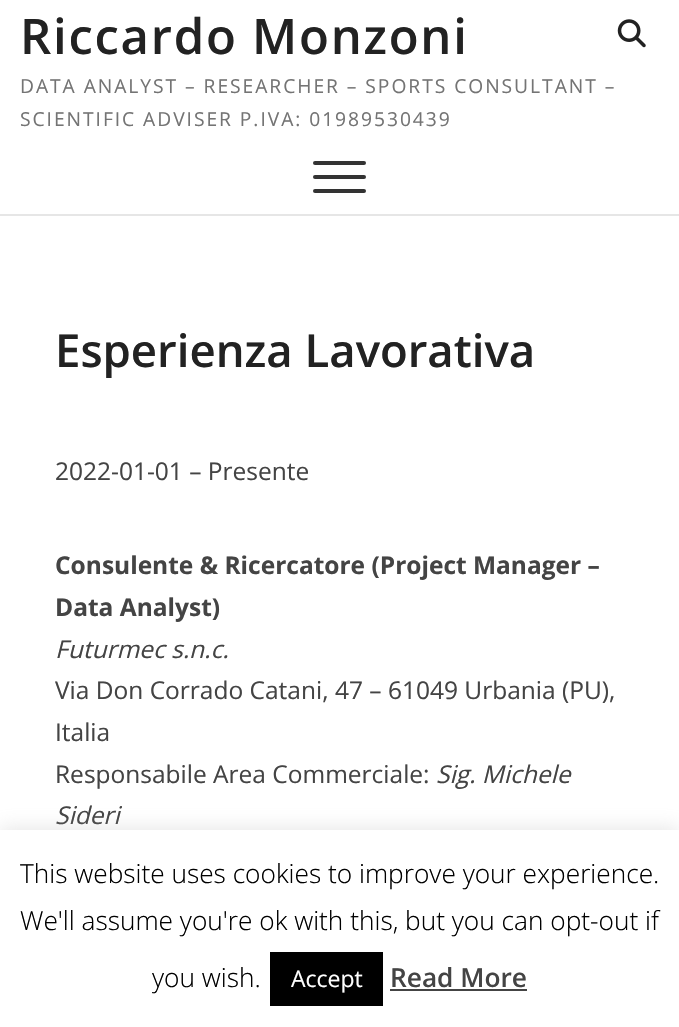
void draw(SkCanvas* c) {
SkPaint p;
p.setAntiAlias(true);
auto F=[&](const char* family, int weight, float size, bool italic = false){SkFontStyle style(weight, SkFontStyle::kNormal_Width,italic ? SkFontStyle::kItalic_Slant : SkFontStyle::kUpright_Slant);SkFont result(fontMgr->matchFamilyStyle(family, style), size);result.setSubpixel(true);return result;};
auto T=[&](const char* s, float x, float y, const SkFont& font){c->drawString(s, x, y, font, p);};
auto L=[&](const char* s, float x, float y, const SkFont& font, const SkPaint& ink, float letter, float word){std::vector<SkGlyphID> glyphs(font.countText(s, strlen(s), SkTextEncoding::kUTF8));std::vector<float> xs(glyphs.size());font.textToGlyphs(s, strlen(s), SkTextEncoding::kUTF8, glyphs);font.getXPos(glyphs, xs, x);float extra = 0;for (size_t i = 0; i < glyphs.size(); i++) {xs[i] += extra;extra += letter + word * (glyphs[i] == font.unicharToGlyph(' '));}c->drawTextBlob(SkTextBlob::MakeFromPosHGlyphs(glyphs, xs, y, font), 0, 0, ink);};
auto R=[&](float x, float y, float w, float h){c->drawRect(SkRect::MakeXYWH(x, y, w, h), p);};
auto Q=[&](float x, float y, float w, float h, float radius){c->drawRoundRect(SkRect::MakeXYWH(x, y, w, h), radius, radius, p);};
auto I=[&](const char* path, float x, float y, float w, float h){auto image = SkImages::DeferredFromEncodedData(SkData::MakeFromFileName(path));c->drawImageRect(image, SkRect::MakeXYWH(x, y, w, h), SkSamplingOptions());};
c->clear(0xffffffff);
p.setColor(0xffe6e6e6);
R(0,214,679,2);
auto f1 = F("Open Sans",600,49);
p.setColor(0xff222222);
L("Riccardo Monzoni",20,54,f1,p,1.75,0);
auto f2 = F("Open Sans",400,19.25);
p.setColor(0xff747474);
L("DATA ANALYST – RESEARCHER – SPORTS CONSULTANT –",20,93,f2,p,1.95,0);
L("SCIENTIFIC ADVISER P.IVA: 01989530439",20,126,f2,p,1.95,0);
I("1.png",617,19,29,29);
p.setColor(0xff333333);
Q(313,175,53,4,2);
Q(313,161,53,4,2);
Q(313,189,53,4,2);
auto f3 = F("Open Sans",600,45.5);
p.setColor(0xff222222);
T("Esperienza Lavorativa",55,367,f3);
auto f4 = F("Open Sans",400,24.5);
p.setColor(0xff444444);
T("2022-01-01 – Presente",55,480,f4);
auto f5 = F("Open Sans",700,24.5);
T("Consulente & Ricercatore (Project Manager –",55,574,f5);
T("Data Analyst)",55,616,f5);
auto f6 = F("Open Sans",400,24.5,true);
T("Futurmec s.n.c.",55,658,f6);
T("Via Don Corrado Catani, 47 – 61049 Urbania (PU),",55,699,f4);
T("Italia",55,741,f4);
T("Responsabile Area Commerciale:",55,783,f4);
T("Sig. Michele",436,783,f6);
T("Sideri",55,824,f6);
p.setColor(0x4dacabab);
p.setMaskFilter(SkMaskFilter::MakeBlur(kNormal_SkBlurStyle, 9));
c->drawRect(SkRect::MakeXYWH(0,828,679,198),p);
p.setMaskFilter(nullptr);
p.setColor(0xffffffff);
R(0,830,679,197);
auto f7 = F("Open Sans",300,26.25);
p.setColor(0xff000000);
T("This website uses cookies to improve your experience.",20,883,f7);
T("We'll assume you're ok with this, but you can opt-out if",20,930,f7);
T("you wish.",152,987,f7);
R(270,952,113,54);
auto f8 = F("Open Sans",400,23);
p.setColor(0xffffffff);
T("Accept",291,987,f8);
auto f9 = F("Open Sans",600,26.25);
p.setColor(0xff444444);
T("Read More",390,987,f9);
R(390,989,137,2);
}
